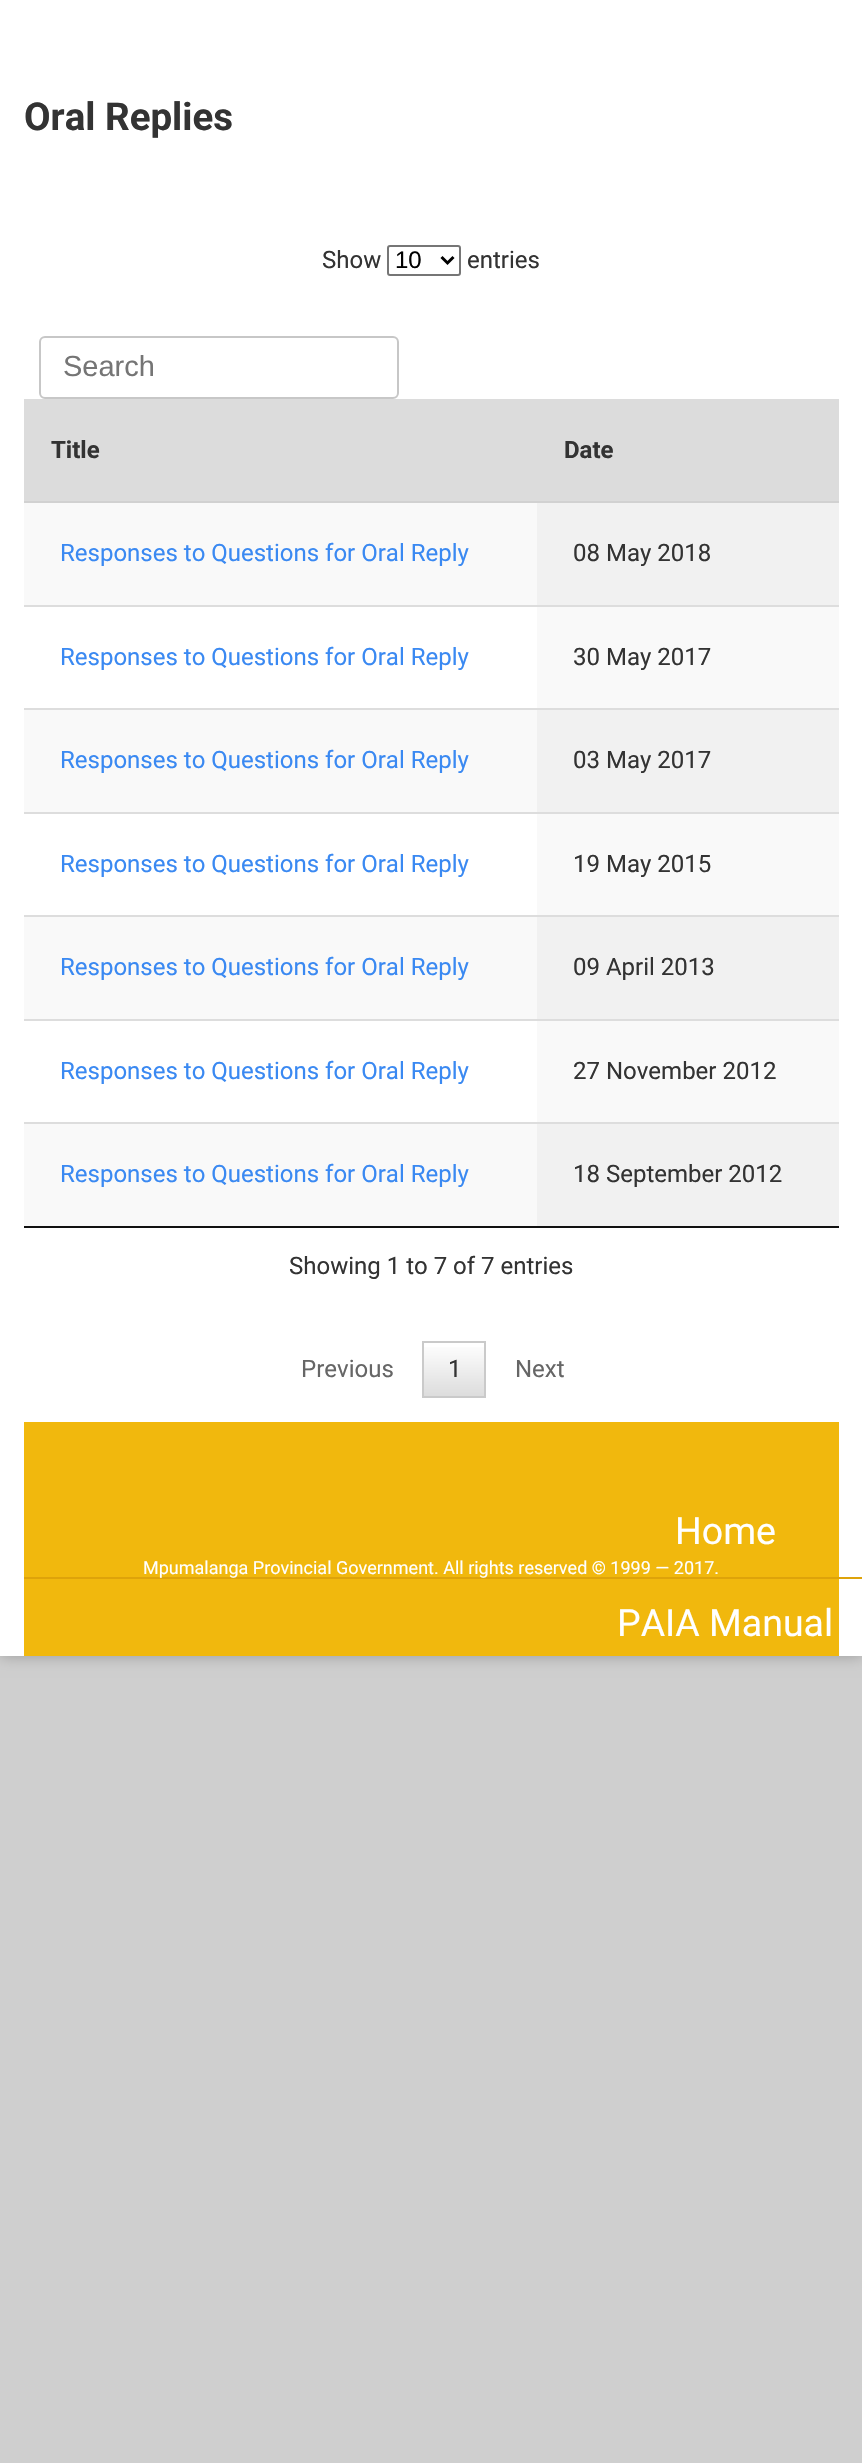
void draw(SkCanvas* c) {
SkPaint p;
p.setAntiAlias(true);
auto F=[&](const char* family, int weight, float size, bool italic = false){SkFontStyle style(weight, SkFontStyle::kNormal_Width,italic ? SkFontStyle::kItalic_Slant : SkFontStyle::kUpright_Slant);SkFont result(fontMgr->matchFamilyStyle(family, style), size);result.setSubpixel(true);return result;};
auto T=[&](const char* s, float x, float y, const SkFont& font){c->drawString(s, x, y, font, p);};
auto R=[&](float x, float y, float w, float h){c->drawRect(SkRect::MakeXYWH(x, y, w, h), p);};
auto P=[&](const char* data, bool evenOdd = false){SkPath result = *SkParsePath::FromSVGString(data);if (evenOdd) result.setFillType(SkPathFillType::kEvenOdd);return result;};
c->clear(0xffcfcfcf);
p.setColor(0xff999999);
p.setMaskFilter(SkMaskFilter::MakeBlur(kNormal_SkBlurStyle, 7.5));
c->drawRect(SkRect::MakeXYWH(0,0,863,1656),p);
p.setMaskFilter(nullptr);
p.setColor(0xffffffff);
R(0,0,862,1656);
auto f1 = F("Roboto",700,38.5);
p.setColor(0xff333333);
T("Oral Replies",24,130,f1);
auto f2 = F("Roboto",400,24);
T("Show",322,268,f2);
p.setStroke(true);
p.setStrokeWidth(2);
p.setColor(0xff767676);
c->drawRoundRect(SkRect::MakeXYWH(388,246,72,29),2,2,p);
p.setStrokeWidth(3);
p.setColor(0xff000000);
c->drawPath(P("M441.5 257l6 6l6-6"),p);
auto f3 = F("Liberation Sans",400,24);
p.setStroke(false);
T("10",395,268,f3);
p.setColor(0xff333333);
T("entries",467,268,f2);
p.setStroke(true);
p.setStrokeWidth(2);
p.setColor(0xffc7c7c7);
c->drawRoundRect(SkRect::MakeXYWH(40,337,358,61),5,5,p);
auto f4 = F("Liberation Sans",400,29);
p.setStroke(false);
p.setColor(0xff757575);
T("Search",63,376,f4);
p.setColor(0xff111111);
R(24,1226,815,2);
p.setColor(0xffdcdcdc);
R(24,399,815,102);
p.setColor(0xffd1d1d1);
R(24,501,815,2);
auto f5 = F("Roboto",700,24);
p.setColor(0xff333333);
T("Title",51,458,f5);
T("Date",564,458,f5);
p.setColor(0xfff9f9f9);
R(24,503,513,102);
p.setColor(0xff3a89f2);
T("Responses to Questions for Oral Reply",60,561,f2);
p.setColor(0xfff1f1f1);
R(537,503,302,102);
p.setColor(0xff333333);
T("08 May 2018",573,561,f2);
p.setColor(0xffdddddd);
R(24,605,815,2);
p.setColor(0xff3a89f2);
T("Responses to Questions for Oral Reply",60,665,f2);
p.setColor(0xfff9f9f9);
R(537,607,302,101);
p.setColor(0xff333333);
T("30 May 2017",573,665,f2);
p.setColor(0xfff9f9f9);
R(24,710,513,102);
p.setColor(0xffdddddd);
R(24,708,815,2);
p.setColor(0xff3a89f2);
T("Responses to Questions for Oral Reply",60,768,f2);
p.setColor(0xfff1f1f1);
R(537,710,302,102);
p.setColor(0xff333333);
T("03 May 2017",573,768,f2);
p.setColor(0xffdddddd);
R(24,812,815,2);
p.setColor(0xff3a89f2);
T("Responses to Questions for Oral Reply",60,872,f2);
p.setColor(0xfff9f9f9);
R(537,814,302,101);
p.setColor(0xff333333);
T("19 May 2015",573,872,f2);
p.setColor(0xfff9f9f9);
R(24,917,513,102);
p.setColor(0xffdddddd);
R(24,915,815,2);
p.setColor(0xff3a89f2);
T("Responses to Questions for Oral Reply",60,975,f2);
p.setColor(0xfff1f1f1);
R(537,917,302,102);
p.setColor(0xff333333);
T("09 April 2013",573,975,f2);
p.setColor(0xffdddddd);
R(24,1019,815,2);
p.setColor(0xff3a89f2);
T("Responses to Questions for Oral Reply",60,1079,f2);
p.setColor(0xfff9f9f9);
R(537,1021,302,101);
p.setColor(0xff333333);
T("27 November 2012",573,1079,f2);
p.setColor(0xfff9f9f9);
R(24,1124,513,102);
p.setColor(0xffdddddd);
R(24,1122,815,2);
p.setColor(0xff3a89f2);
T("Responses to Questions for Oral Reply",60,1182,f2);
p.setColor(0xfff1f1f1);
R(537,1124,302,102);
p.setColor(0xff333333);
T("18 September 2012",573,1182,f2);
T("Showing 1 to 7 of 7 entries",289,1274,f2);
p.setColor(0xff666666);
T("Previous",301,1377,f2);
{
const SkColor colors[] = {0xffffffff,0xffdcdcdc};
const float stops[] = {0,1};
const SkPoint ends[] = {{454,1343}, {454,1397}};
p.setShader(SkGradientShader::MakeLinear(ends, colors, stops, 2, SkTileMode::kClamp));
p.setAlpha(255);
}
R(424,1347,60,49);
p.setStroke(true);
p.setShader(nullptr);
p.setColor(0xffcacaca);
c->drawRect(SkRect::MakeXYWH(423,1342,62,55),p);
p.setStroke(false);
p.setColor(0xff333333);
T("1",448,1377,f2);
p.setColor(0xff666666);
T("Next",515,1377,f2);
p.setColor(0xfff1b80d);
R(24,1422,815,234);
p.setColor(0xffdea30a);
R(24,1577,838,2);
auto f6 = F("Roboto",400,18);
p.setColor(0xffffffff);
T("Mpumalanga Provincial Government. All rights reserved © 1999 — 2017.",143,1574,f6);
auto f7 = F("Roboto",400,37.5);
T("Home",675,1544,f7);
T("PAIA Manual",617,1636,f7);
}
